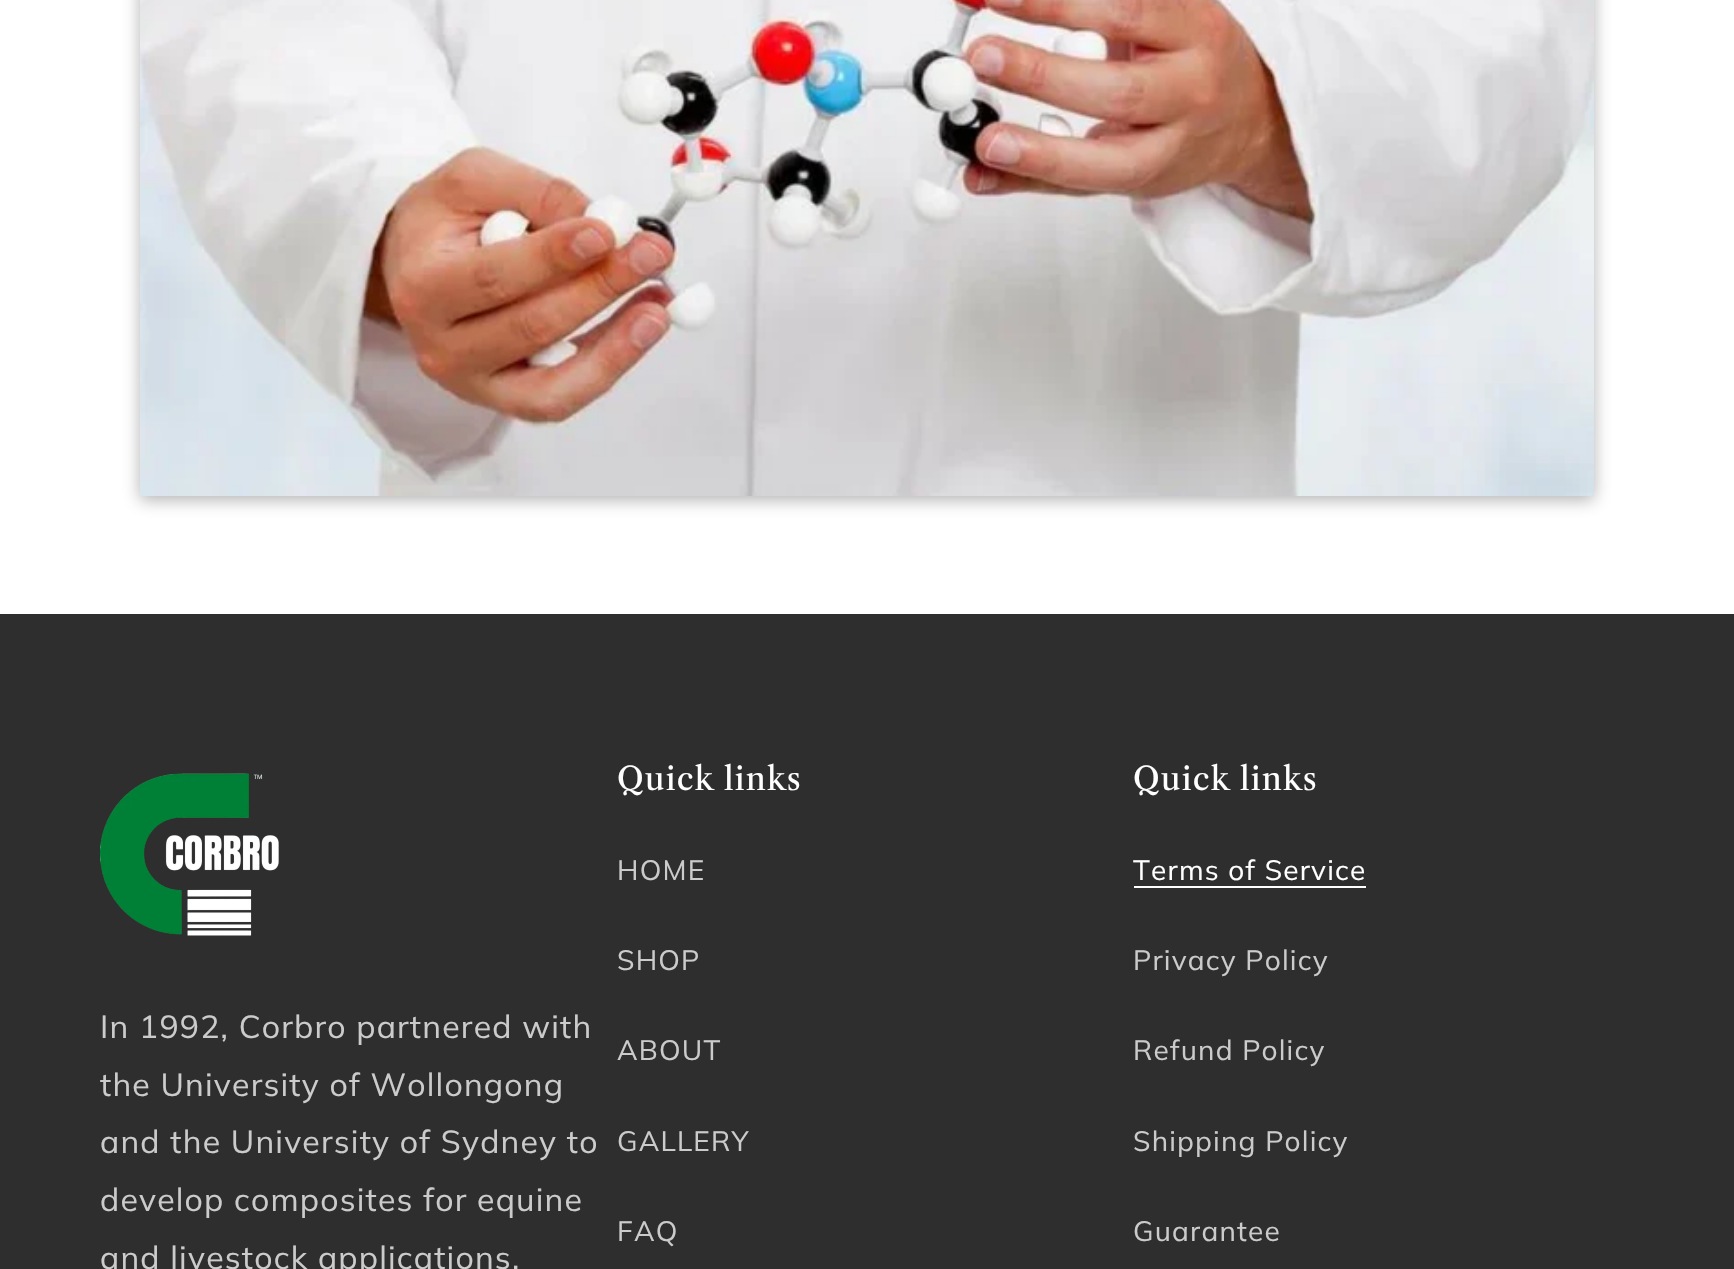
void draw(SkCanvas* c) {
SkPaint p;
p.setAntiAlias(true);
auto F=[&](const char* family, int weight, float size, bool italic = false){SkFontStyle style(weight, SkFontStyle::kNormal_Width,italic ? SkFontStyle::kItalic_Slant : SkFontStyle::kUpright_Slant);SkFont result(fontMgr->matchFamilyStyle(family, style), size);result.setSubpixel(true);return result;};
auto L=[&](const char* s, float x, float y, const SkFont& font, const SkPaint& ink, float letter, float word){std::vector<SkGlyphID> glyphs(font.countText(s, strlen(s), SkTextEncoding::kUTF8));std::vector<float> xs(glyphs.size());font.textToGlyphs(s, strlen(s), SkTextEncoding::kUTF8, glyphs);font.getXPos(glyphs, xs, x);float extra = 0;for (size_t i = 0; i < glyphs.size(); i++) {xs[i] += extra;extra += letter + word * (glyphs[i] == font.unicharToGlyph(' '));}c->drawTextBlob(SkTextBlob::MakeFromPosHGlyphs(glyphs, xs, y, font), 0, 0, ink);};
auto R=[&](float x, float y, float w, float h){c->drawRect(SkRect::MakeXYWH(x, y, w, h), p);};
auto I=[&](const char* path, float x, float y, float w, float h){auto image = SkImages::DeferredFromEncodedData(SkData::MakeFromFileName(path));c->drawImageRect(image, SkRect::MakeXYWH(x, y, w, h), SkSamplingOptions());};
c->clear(0xffffffff);
p.setColor(0x80636363);
p.setMaskFilter(SkMaskFilter::MakeBlur(kNormal_SkBlurStyle, 8));
c->drawRect(SkRect::MakeXYWH(140,-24,1454,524),p);
p.setMaskFilter(nullptr);
I("1.png",140,0,1454,496);
p.setColor(0xff2e2e2e);
R(0,614,1734,655);
I("2.png",100,773,179,163);
auto f1 = F("Muli",400,32);
p.setColor(0xffcbcbcb);
L("In 1992, Corbro partnered with",100,1038,f1,p,1.2,0);
L("the University of Wollongong",100,1096,f1,p,1.2,0);
L("and the University of Sydney to",100,1153,f1,p,1.2,0);
L("develop composites for equine",100,1211,f1,p,1.2,0);
L("and livestock applications,",100,1269,f1,p,1.2,0);
auto f2 = F("Libre Caslon Text",400,32);
p.setColor(0xffffffff);
L("Quick links",617,790,f2,p,1.2,0);
auto f3 = F("Muli",400,28);
p.setColor(0xffcbcbcb);
L("HOME",617,880,f3,p,1.2,0);
L("SHOP",617,970,f3,p,1.2,0);
L("ABOUT",617,1060,f3,p,1.2,0);
L("GALLERY",617,1151,f3,p,1.2,0);
L("FAQ",617,1241,f3,p,1.2,0);
p.setColor(0xffffffff);
L("Quick links",1133,790,f2,p,1.2,0);
L("Terms of Service",1133,880,f3,p,1.2,0);
R(1134,886,232,2);
p.setColor(0xffcbcbcb);
L("Privacy Policy",1133,970,f3,p,1.2,0);
L("Refund Policy",1133,1060,f3,p,1.2,0);
L("Shipping Policy",1133,1151,f3,p,1.2,0);
L("Guarantee",1133,1241,f3,p,1.2,0);
}
